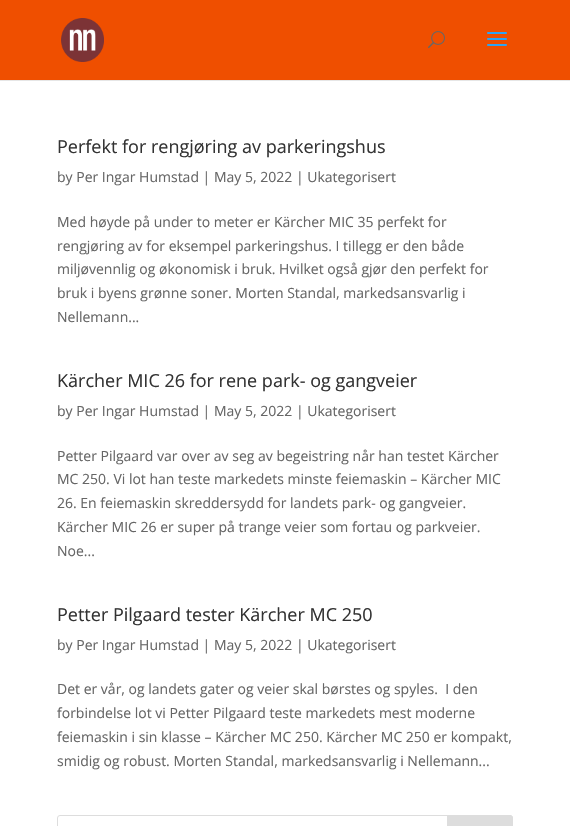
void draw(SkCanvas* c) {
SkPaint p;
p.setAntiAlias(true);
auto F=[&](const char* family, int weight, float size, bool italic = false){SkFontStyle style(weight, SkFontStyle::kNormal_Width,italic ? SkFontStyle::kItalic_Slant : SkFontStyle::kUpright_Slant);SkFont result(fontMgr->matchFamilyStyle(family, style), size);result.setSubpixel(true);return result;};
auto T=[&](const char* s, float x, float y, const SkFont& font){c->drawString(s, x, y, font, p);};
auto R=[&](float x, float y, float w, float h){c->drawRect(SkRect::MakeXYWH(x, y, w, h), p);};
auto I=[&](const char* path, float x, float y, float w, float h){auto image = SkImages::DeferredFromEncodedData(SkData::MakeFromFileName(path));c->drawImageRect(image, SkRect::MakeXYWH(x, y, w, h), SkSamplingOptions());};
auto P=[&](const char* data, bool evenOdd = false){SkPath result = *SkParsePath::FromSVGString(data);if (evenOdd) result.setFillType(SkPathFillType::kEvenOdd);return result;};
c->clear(0xffffffff);
p.setColor(0xffe6e6e6);
R(0,80,570,1);
p.setColor(0xffef4f00);
R(0,0,570,80);
I("1.png",61,18,43,44);
I("2.png",428,31,17,18);
I("3.png",487,32,20,14);
auto f1 = F("Open Sans",400,18);
p.setColor(0xff333333);
T("Perfekt for rengjøring av parkeringshus",57,153,f1);
auto f2 = F("Open Sans",400,14);
p.setColor(0xff666666);
T("by Per Ingar Humstad | May 5, 2022 | Ukategorisert",57,182,f2);
T("Med høyde på under to meter er Kärcher MIC 35 perfekt for",57,227,f2);
T("rengjøring av for eksempel parkeringshus. I tillegg er den både",57,251,f2);
T("miljøvennlig og økonomisk i bruk. Hvilket også gjør den perfekt for",57,274,f2);
T("bruk i byens grønne soner. Morten Standal, markedsansvarlig i",57,298,f2);
T("Nellemann...",57,322,f2);
p.setColor(0xff333333);
T("Kärcher MIC 26 for rene park- og gangveier",57,387,f1);
p.setColor(0xff666666);
T("by Per Ingar Humstad | May 5, 2022 | Ukategorisert",57,416,f2);
T("Petter Pilgaard var over av seg av begeistring når han testet Kärcher",57,461,f2);
T("MC 250. Vi lot han teste markedets minste feiemaskin – Kärcher MIC",57,484,f2);
T("26. En feiemaskin skreddersydd for landets park- og gangveier.",57,508,f2);
T("Kärcher MIC 26 er super på trange veier som fortau og parkveier.",57,532,f2);
T("Noe...",57,556,f2);
p.setColor(0xff333333);
T("Petter Pilgaard tester Kärcher MC 250",57,621,f1);
p.setColor(0xff666666);
T("by Per Ingar Humstad | May 5, 2022 | Ukategorisert",57,650,f2);
T("Det er vår, og landets gater og veier skal børstes og spyles.  I den",57,694,f2);
T("forbindelse lot vi Petter Pilgaard teste markedets mest moderne",57,718,f2);
T("feiemaskin i sin klasse – Kärcher MC 250. Kärcher MC 250 er kompakt,",57,742,f2);
T("smidig og robust. Morten Standal, markedsansvarlig i Nellemann...",57,766,f2);
p.setStroke(true);
p.setStrokeWidth(1);
p.setColor(0xffdddddd);
c->drawRoundRect(SkRect::MakeXYWH(57.5,815.5,455,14),2.5,2.5,p);
p.setStroke(false);
c->drawPath(P("M447.5 815.5h62.5c1.5 0 2.5 1 2.5 2.5v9c0 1.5-1 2.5-2.5 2.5h-62.5z"),p);
p.setStroke(true);
c->drawPath(P("M447.5 815.5h62.5c1.5 0 2.5 1 2.5 2.5v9c0 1.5-1 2.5-2.5 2.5h-62.5z"),p);
}
